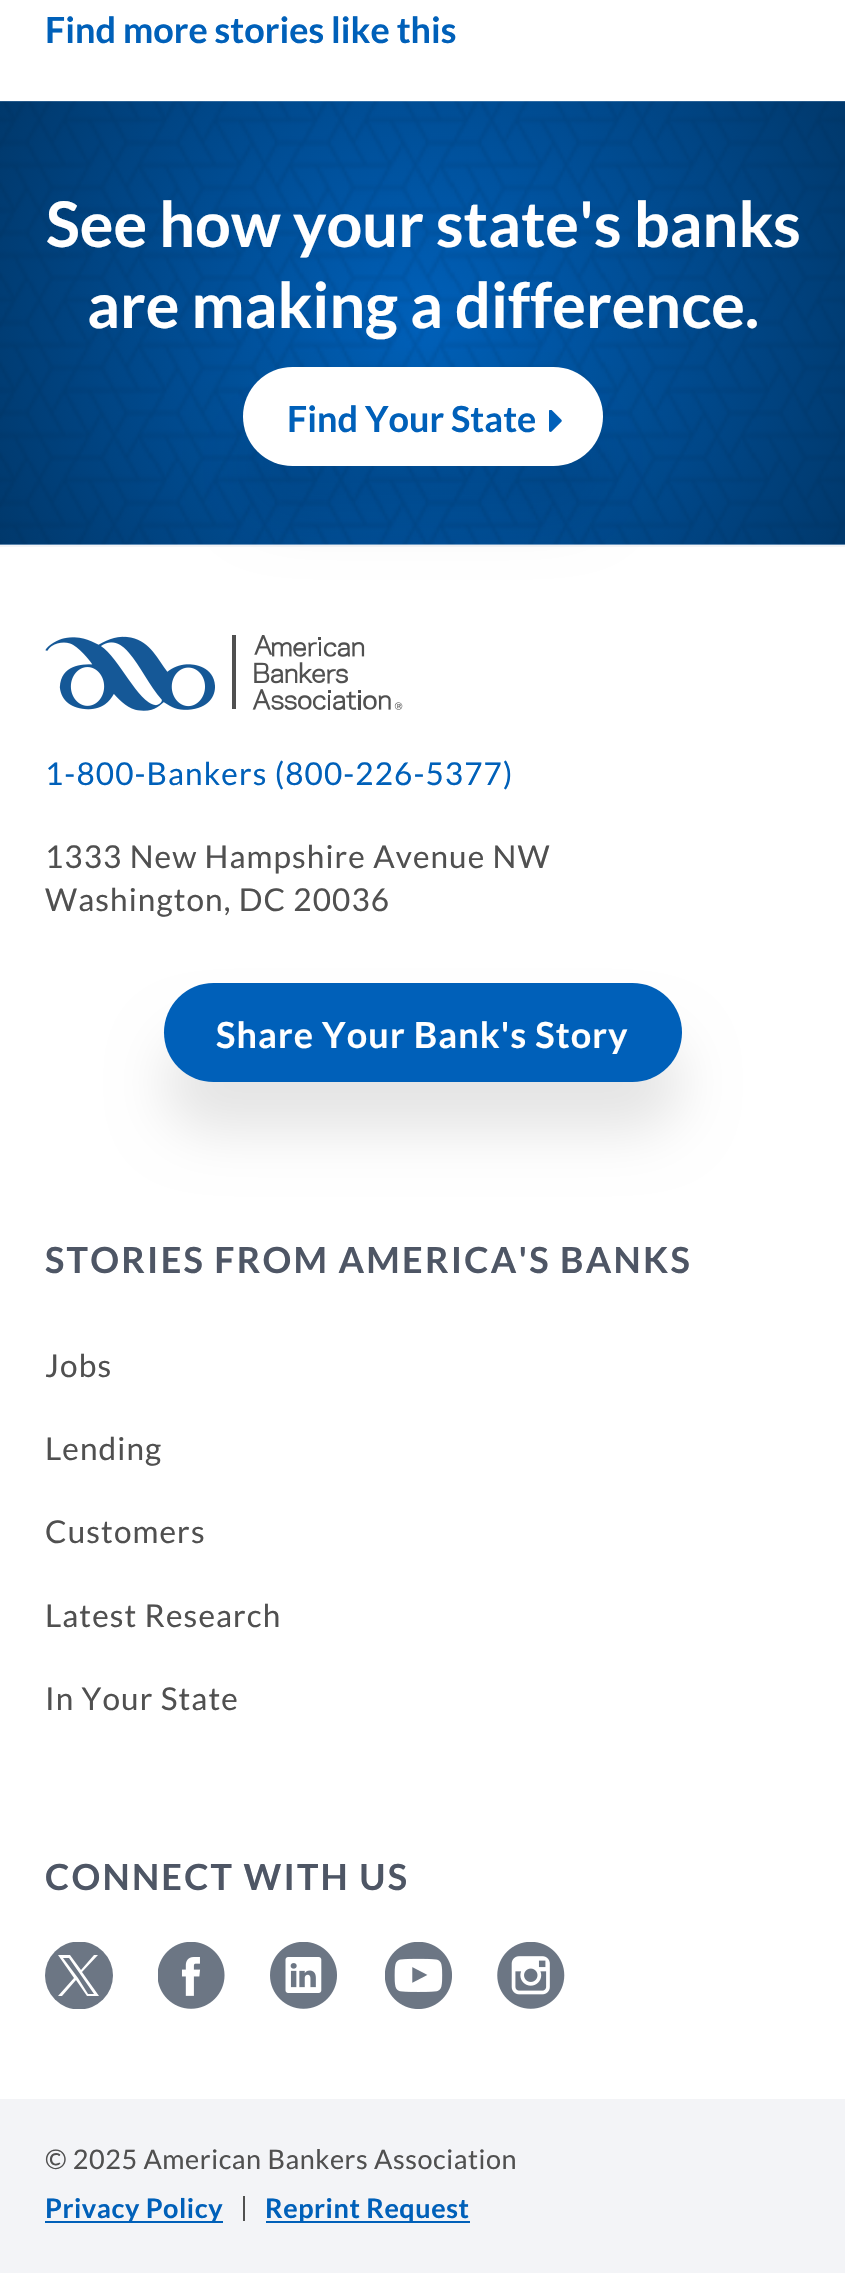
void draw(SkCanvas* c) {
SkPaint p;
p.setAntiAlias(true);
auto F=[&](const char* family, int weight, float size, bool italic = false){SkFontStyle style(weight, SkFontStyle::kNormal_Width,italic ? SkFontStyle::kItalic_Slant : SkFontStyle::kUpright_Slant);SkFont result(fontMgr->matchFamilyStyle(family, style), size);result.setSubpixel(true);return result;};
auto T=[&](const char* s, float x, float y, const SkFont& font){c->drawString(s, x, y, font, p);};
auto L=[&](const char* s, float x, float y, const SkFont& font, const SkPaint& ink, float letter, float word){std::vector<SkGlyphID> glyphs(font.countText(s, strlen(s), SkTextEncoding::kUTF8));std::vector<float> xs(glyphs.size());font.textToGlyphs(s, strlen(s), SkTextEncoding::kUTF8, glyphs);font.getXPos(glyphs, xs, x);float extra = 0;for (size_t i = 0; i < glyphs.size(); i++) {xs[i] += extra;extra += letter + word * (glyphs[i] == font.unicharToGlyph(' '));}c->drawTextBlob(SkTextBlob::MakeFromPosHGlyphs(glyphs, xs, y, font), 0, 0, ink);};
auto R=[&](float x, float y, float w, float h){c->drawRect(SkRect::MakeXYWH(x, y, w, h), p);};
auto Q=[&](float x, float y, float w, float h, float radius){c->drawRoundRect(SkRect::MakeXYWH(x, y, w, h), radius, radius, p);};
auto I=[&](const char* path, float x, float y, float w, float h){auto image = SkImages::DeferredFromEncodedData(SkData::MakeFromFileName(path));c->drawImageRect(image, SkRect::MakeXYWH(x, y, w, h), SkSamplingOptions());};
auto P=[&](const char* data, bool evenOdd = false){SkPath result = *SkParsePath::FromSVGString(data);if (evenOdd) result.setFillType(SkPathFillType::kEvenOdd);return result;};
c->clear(0xffffffff);
auto f1 = F("Lato",700,36);
p.setColor(0xff0060b9);
T("Find more stories like this",45,43,f1);
I("1.png",0,101,845,444);
auto f2 = F("Lato",700,63);
p.setColor(0xffffffff);
T("See how your state's banks",46,247,f2);
T("are making a difference.",87,328,f2);
p.setColor(0xfff3f4f7);
R(0,545,845,2);
p.setColor(0x1a000000);
p.setMaskFilter(SkMaskFilter::MakeBlur(kNormal_SkBlurStyle, 27));
c->drawRoundRect(SkRect::MakeXYWH(243,416,360,99),49.5,49.5,p);
p.setMaskFilter(nullptr);
p.setColor(0xffffffff);
Q(243,367,360,99,49.5);
p.setColor(0xff0060b9);
T("Find Your State",287,432,f1);
I("2.png",549,410,13,22);
I("3.png",45,635,358,76);
auto f3 = F("Lato",400,31.5);
L("1-800-Bankers (800-226-5377)",45,785,f3,p,1.1,0);
p.setColor(0xff505050);
L("1333 New Hampshire Avenue NW",45,868,f3,p,1.1,0);
L("Washington, DC 20036",45,911,f3,p,1.1,0);
p.setColor(0x1a000000);
p.setMaskFilter(SkMaskFilter::MakeBlur(kNormal_SkBlurStyle, 27));
c->drawRoundRect(SkRect::MakeXYWH(164,1033,518,99),49.5,49.5,p);
p.setMaskFilter(nullptr);
p.setColor(0xff0060b9);
Q(164,983,518,99,49.5);
p.setColor(0xffffffff);
L("Share Your Bank's Story",216,1048,f1,p,1.1,0);
p.setColor(0xff4e5665);
L("STORIES FROM AMERICA'S BANKS",45,1273,f1,p,2.25,0);
p.setColor(0xff505050);
L("Jobs",45,1377,f3,p,1.1,0);
L("Lending",45,1460,f3,p,1.1,0);
L("Customers",45,1543,f3,p,1.1,0);
L("Latest Research",45,1627,f3,p,1.1,0);
L("In Your State",45,1710,f3,p,1.1,0);
p.setColor(0xff4e5665);
L("CONNECT WITH US",45,1890,f1,p,2.25,0);
c->save();
c->clipRect(SkRect::MakeXYWH(45,1942,68,67));
p.setColor(0xff6c7684);
c->drawCircle(79,1975.5,34,p);
c->restore();
p.setColor(0xffffffff);
c->drawPath(P("M82 1972l16-17h-4l-13 15l-11-15h-12l16 23l-16 18h4l14-16l11 16h12zm-4 6l-15-20h6l25 36h-6z"),p);
I("4.png",158,1942,67,67);
I("5.png",270,1942,67,67);
I("6.png",385,1942,67,67);
I("7.png",497,1942,68,67);
p.setColor(0xfff3f4f7);
R(0,2099,845,174);
auto f4 = F("Lato",400,27);
p.setColor(0xff505050);
L("© 2025 American Bankers Association",45,2169,f4,p,.55,0);
p.setColor(0xff0060b9);
R(45,2221,178,2);
auto f5 = F("Lato",700,27);
L("Privacy Policy",45,2218,f5,p,.55,0);
p.setColor(0xff505050);
R(243,2196,2,25);
p.setColor(0xff0060b9);
R(266,2221,204,2);
L("Reprint Request",265,2218,f5,p,.55,0);
}
